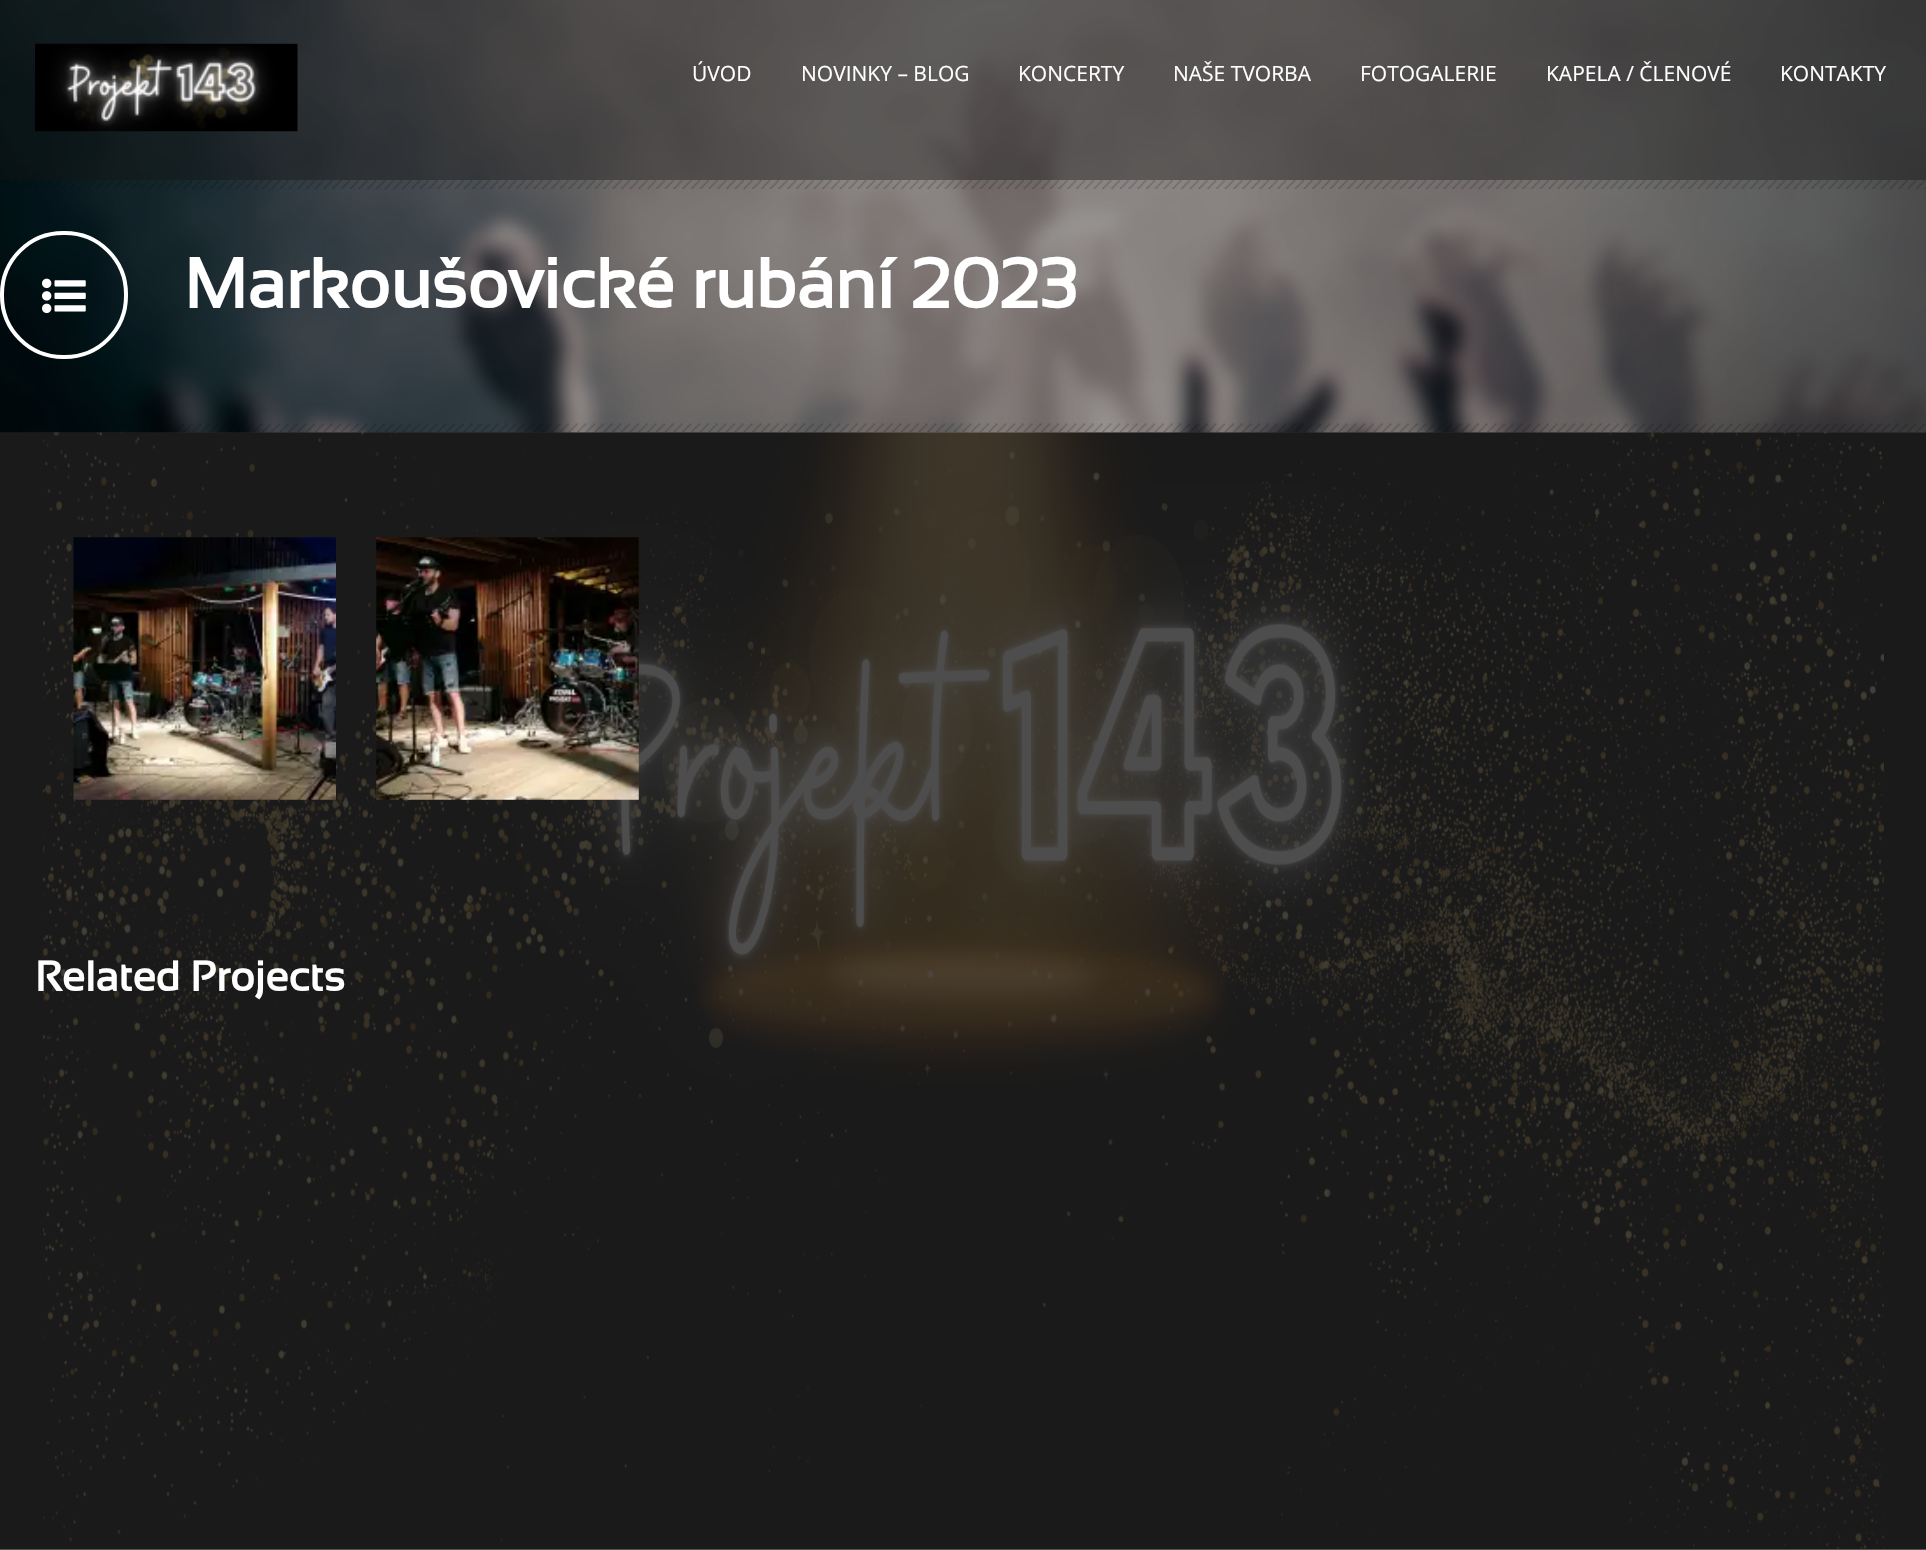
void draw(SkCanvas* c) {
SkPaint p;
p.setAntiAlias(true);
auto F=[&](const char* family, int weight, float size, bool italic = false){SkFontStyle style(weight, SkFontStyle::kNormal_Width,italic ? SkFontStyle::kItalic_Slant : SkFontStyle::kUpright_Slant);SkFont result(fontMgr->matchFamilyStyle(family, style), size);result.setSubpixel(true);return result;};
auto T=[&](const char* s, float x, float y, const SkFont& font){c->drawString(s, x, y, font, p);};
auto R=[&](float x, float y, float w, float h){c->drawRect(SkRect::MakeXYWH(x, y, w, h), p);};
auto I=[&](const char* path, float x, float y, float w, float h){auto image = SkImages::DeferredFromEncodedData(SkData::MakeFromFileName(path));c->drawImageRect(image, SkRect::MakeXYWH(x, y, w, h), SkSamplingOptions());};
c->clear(0xffffffff);
I("8.png",0,432,1926,1117);
I("3.png",0,0,1926,433);
p.setColor(0x66111111);
R(0,0,1926,180);
I("1.png",35,43,263,89);
auto f1 = F("Open Sans",400,21);
p.setColor(0xffffffff);
T("ÚVOD",692,81,f1);
T("NOVINKY – BLOG",801,81,f1);
T("KONCERTY",1018,81,f1);
T("NAŠE TVORBA",1173,81,f1);
T("FOTOGALERIE",1360,81,f1);
T("KAPELA / ČLENOVÉ",1546,81,f1);
T("KONTAKTY",1780,81,f1);
I("2.png",2,180,1924,9);
p.setStroke(true);
p.setStrokeWidth(4);
c->drawRoundRect(SkRect::MakeXYWH(2,233,124,124),61,61,p);
I("4.png",42,278,44,36);
auto f2 = F("Sansation",700,70);
p.setStroke(false);
T("Markoušovické rubání 2023",184,308,f2);
I("5.png",174,423,1752,10);
I("6.png",73,537,263,263);
I("7.png",376,537,263,263);
auto f3 = F("Sansation",700,42);
T("Related Projects",35,991,f3);
p.setColor(0xff535353);
R(0,1549,1926,1);
}
